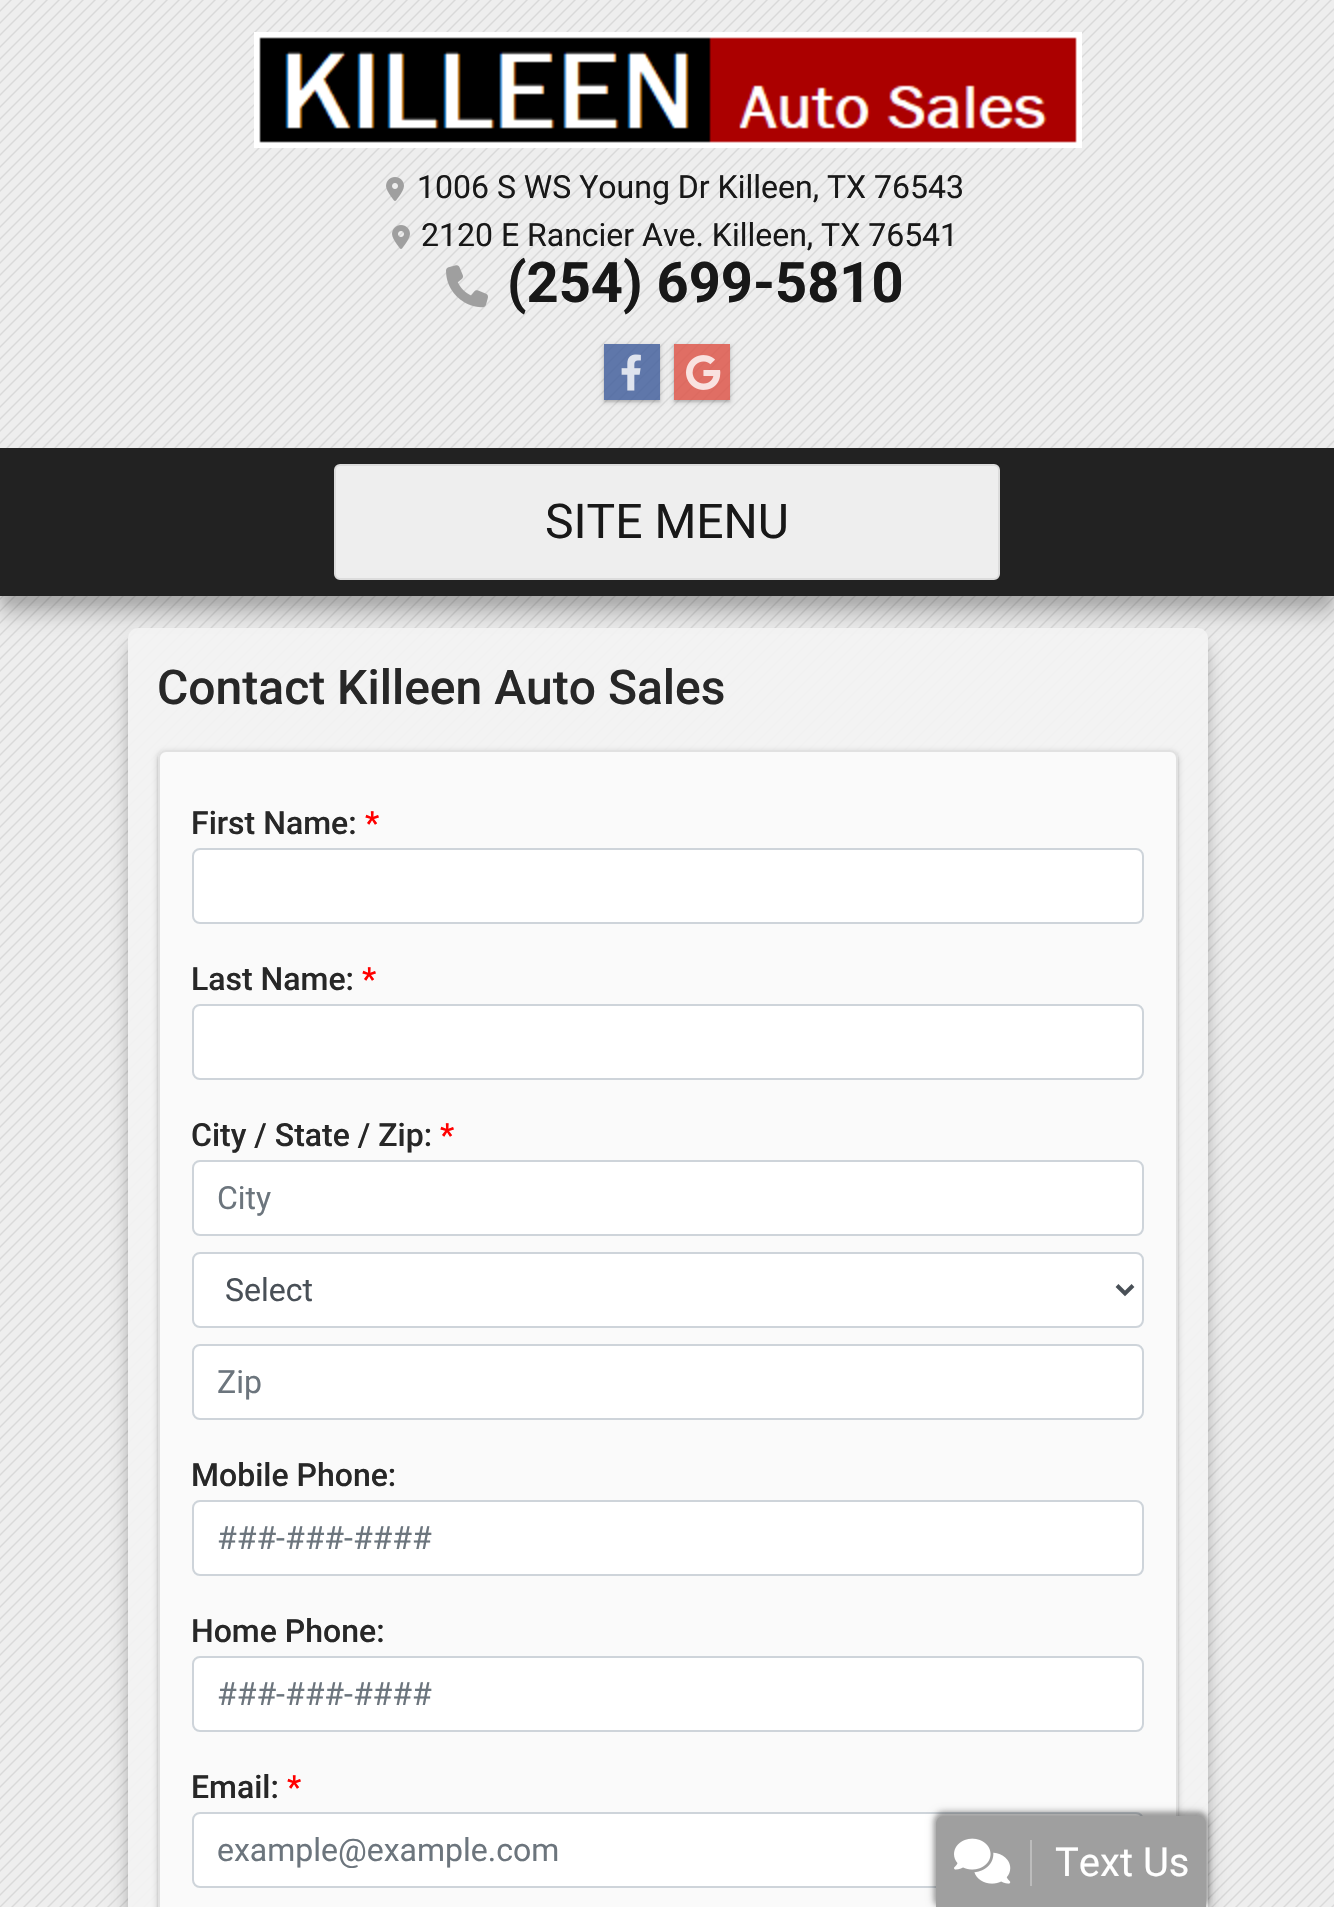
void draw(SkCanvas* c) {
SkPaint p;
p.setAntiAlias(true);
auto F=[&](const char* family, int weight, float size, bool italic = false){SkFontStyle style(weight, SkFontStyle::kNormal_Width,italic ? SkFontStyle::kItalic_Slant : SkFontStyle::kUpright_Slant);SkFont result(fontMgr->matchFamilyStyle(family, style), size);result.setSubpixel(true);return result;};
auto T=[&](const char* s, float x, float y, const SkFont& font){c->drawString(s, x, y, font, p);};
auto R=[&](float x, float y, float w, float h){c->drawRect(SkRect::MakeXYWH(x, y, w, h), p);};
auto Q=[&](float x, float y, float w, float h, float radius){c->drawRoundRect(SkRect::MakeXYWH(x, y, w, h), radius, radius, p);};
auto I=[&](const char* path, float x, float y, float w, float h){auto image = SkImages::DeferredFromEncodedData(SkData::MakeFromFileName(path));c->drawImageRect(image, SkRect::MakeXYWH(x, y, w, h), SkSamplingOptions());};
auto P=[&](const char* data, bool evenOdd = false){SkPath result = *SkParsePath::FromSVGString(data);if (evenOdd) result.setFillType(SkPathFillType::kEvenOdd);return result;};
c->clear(0xffeeeeee);
I("1.png",0,0,1334,1907);
I("2.png",254,32,828,116);
I("3.png",386,177,18,24);
auto f1 = F("Roboto",400,32);
p.setColor(0xff181818);
T("1006 S WS Young Dr Killeen, TX 76543",417,198,f1);
I("4.png",392,225,18,24);
T("2120 E Rancier Ave. Killeen, TX 76541",421,246,f1);
I("5.png",446,265,42,43);
auto f2 = F("Roboto",700,56);
T("(254) 699-5810",507,302,f2);
c->save();
c->clipPath(P("M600 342h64v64h-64zm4 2h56v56h-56z",true),true);
p.setColor(0x29000000);
p.setMaskFilter(SkMaskFilter::MakeBlur(kNormal_SkBlurStyle, 1));
c->drawRect(SkRect::MakeXYWH(604,346,56,56),p);
p.setMaskFilter(nullptr);
c->restore();
c->save();
c->clipPath(P("M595 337h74v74h-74zm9 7h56v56h-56z",true),true);
p.setColor(0x14000000);
p.setMaskFilter(SkMaskFilter::MakeBlur(kNormal_SkBlurStyle, 2));
c->drawRect(SkRect::MakeXYWH(602,344,60,60),p);
p.setMaskFilter(nullptr);
c->restore();
p.setColor(0xcc3b5998);
R(604,344,56,56);
I("6.png",621,354,20,37);
c->save();
c->clipPath(P("M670 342h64v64h-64zm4 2h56v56h-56z",true),true);
p.setColor(0x29000000);
p.setMaskFilter(SkMaskFilter::MakeBlur(kNormal_SkBlurStyle, 1));
c->drawRect(SkRect::MakeXYWH(674,346,56,56),p);
p.setMaskFilter(nullptr);
c->restore();
c->save();
c->clipPath(P("M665 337h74v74h-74zm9 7h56v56h-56z",true),true);
p.setColor(0x14000000);
p.setMaskFilter(SkMaskFilter::MakeBlur(kNormal_SkBlurStyle, 2));
c->drawRect(SkRect::MakeXYWH(672,344,60,60),p);
p.setMaskFilter(nullptr);
c->restore();
p.setColor(0xccdc4e41);
R(674,344,56,56);
I("7.png",686,355,35,35);
p.setColor(0x1a000000);
p.setMaskFilter(SkMaskFilter::MakeBlur(kNormal_SkBlurStyle, 5));
c->drawRect(SkRect::MakeXYWH(0,458,1334,148),p);
p.setMaskFilter(nullptr);
p.setColor(0x33000000);
p.setMaskFilter(SkMaskFilter::MakeBlur(kNormal_SkBlurStyle, 10));
c->drawRect(SkRect::MakeXYWH(0,468,1334,148),p);
p.setMaskFilter(nullptr);
p.setColor(0xff222222);
R(0,448,1334,148);
p.setColor(0xffeeeeee);
c->drawRoundRect(SkRect::MakeXYWH(335,465,664,114),5,5,p);
p.setStroke(true);
p.setStrokeWidth(2);
p.setColor(0xffdcdcdc);
c->drawRoundRect(SkRect::MakeXYWH(335,465,664,114),5,5,p);
auto f3 = F("Roboto",400,48);
p.setStroke(false);
p.setColor(0xff181818);
T("SITE MENU",545,538,f3);
c->save();
c->clipPath(P("M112 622h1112v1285h-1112zm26 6h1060c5.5 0 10 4.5 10 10v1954c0 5.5-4.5 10-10 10h-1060c-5.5 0-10-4.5-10-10v-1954c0-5.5 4.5-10 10-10z",true),true);
p.setColor(0x1a000000);
p.setMaskFilter(SkMaskFilter::MakeBlur(kNormal_SkBlurStyle, 5));
c->drawRoundRect(SkRect::MakeXYWH(128,638,1080,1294),10,10,p);
p.setMaskFilter(nullptr);
c->restore();
c->save();
c->clipPath(P("M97 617h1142v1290h-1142zm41 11h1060c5.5 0 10 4.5 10 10v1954c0 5.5-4.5 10-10 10h-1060c-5.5 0-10-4.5-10-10v-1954c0-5.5 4.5-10 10-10z",true),true);
p.setColor(0x33000000);
p.setMaskFilter(SkMaskFilter::MakeBlur(kNormal_SkBlurStyle, 10));
c->drawRoundRect(SkRect::MakeXYWH(128,648,1080,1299),10,10,p);
p.setMaskFilter(nullptr);
c->restore();
p.setColor(0xe6f3f3f3);
Q(128,628,1080,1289,10);
auto f4 = F("Roboto",500,48);
p.setColor(0xff272727);
T("Contact Killeen Auto Sales",157,704,f4);
c->save();
c->clipPath(P("M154 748h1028v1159h-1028zm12 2h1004c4.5 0 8 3.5 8 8v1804c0 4.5-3.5 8-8 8h-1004c-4.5 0-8-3.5-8-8v-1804c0-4.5 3.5-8 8-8z",true),true);
p.setColor(0x33000000);
p.setMaskFilter(SkMaskFilter::MakeBlur(kNormal_SkBlurStyle, 1));
c->drawRoundRect(SkRect::MakeXYWH(158,752,1020,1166),8,8,p);
p.setMaskFilter(nullptr);
c->restore();
c->save();
c->clipPath(P("M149 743h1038v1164h-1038zm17 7h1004c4.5 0 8 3.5 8 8v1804c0 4.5-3.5 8-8 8h-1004c-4.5 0-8-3.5-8-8v-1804c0-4.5 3.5-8 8-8z",true),true);
p.setColor(0x1a000000);
p.setMaskFilter(SkMaskFilter::MakeBlur(kNormal_SkBlurStyle, 2));
c->drawRoundRect(SkRect::MakeXYWH(156,750,1024,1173),10,10,p);
p.setMaskFilter(nullptr);
c->restore();
p.setColor(0x99ffffff);
c->drawRoundRect(SkRect::MakeXYWH(159,751,1018,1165),7,7,p);
p.setStroke(true);
p.setColor(0xffe1e1e1);
c->drawRoundRect(SkRect::MakeXYWH(159,751,1018,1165),7,7,p);
auto f5 = F("Roboto",500,32);
p.setStroke(false);
p.setColor(0xff272727);
T("First Name:",191,834,f5);
p.setColor(0xffff0000);
T("*",365,834,f5);
p.setColor(0xffffffff);
c->drawRoundRect(SkRect::MakeXYWH(193,849,950,74),7,7,p);
p.setStroke(true);
p.setColor(0xffced4da);
c->drawRoundRect(SkRect::MakeXYWH(193,849,950,74),7,7,p);
p.setStroke(false);
p.setColor(0xff272727);
T("Last Name:",191,990,f5);
p.setColor(0xffff0000);
T("*",362,990,f5);
p.setColor(0xffffffff);
c->drawRoundRect(SkRect::MakeXYWH(193,1005,950,74),7,7,p);
p.setStroke(true);
p.setColor(0xffced4da);
c->drawRoundRect(SkRect::MakeXYWH(193,1005,950,74),7,7,p);
p.setStroke(false);
p.setColor(0xff272727);
T("City / State / Zip:",191,1146,f5);
p.setColor(0xffff0000);
T("*",440,1146,f5);
p.setColor(0xffffffff);
c->drawRoundRect(SkRect::MakeXYWH(193,1161,950,74),7,7,p);
p.setStroke(true);
p.setColor(0xffced4da);
c->drawRoundRect(SkRect::MakeXYWH(193,1161,950,74),7,7,p);
p.setStroke(false);
p.setColor(0xff6c757d);
T("City",217,1209,f1);
p.setColor(0xffffffff);
c->drawRoundRect(SkRect::MakeXYWH(193,1253,950,74),7,7,p);
p.setStroke(true);
p.setColor(0xffced4da);
c->drawRoundRect(SkRect::MakeXYWH(193,1253,950,74),7,7,p);
p.setStrokeWidth(4);
p.setColor(0xff495057);
c->drawPath(P("M1117 1285.5l8 8l8-8"),p);
p.setStroke(false);
T("Select",225,1301,f1);
p.setColor(0xffffffff);
c->drawRoundRect(SkRect::MakeXYWH(193,1345,950,74),7,7,p);
p.setStroke(true);
p.setStrokeWidth(2);
p.setColor(0xffced4da);
c->drawRoundRect(SkRect::MakeXYWH(193,1345,950,74),7,7,p);
p.setStroke(false);
p.setColor(0xff6c757d);
T("Zip",217,1393,f1);
p.setColor(0xff272727);
T("Mobile Phone:",191,1486,f5);
p.setColor(0xffffffff);
c->drawRoundRect(SkRect::MakeXYWH(193,1501,950,74),7,7,p);
p.setStroke(true);
p.setColor(0xffced4da);
c->drawRoundRect(SkRect::MakeXYWH(193,1501,950,74),7,7,p);
p.setStroke(false);
p.setColor(0xff6c757d);
T("###-###-####",217,1549,f1);
p.setColor(0xff272727);
T("Home Phone:",191,1642,f5);
p.setColor(0xffffffff);
c->drawRoundRect(SkRect::MakeXYWH(193,1657,950,74),7,7,p);
p.setStroke(true);
p.setColor(0xffced4da);
c->drawRoundRect(SkRect::MakeXYWH(193,1657,950,74),7,7,p);
p.setStroke(false);
p.setColor(0xff6c757d);
T("###-###-####",217,1705,f1);
p.setColor(0xff272727);
T("Email:",191,1798,f5);
p.setColor(0xffff0000);
T("*",287,1798,f5);
p.setColor(0xffffffff);
c->drawRoundRect(SkRect::MakeXYWH(193,1813,950,74),7,7,p);
p.setStroke(true);
p.setColor(0xffced4da);
c->drawRoundRect(SkRect::MakeXYWH(193,1813,950,74),7,7,p);
p.setStroke(false);
p.setColor(0xff6c757d);
T("example@example.com",217,1861,f1);
p.setColor(0x40000000);
p.setMaskFilter(SkMaskFilter::MakeBlur(kNormal_SkBlurStyle, 2));
c->drawRoundRect(SkRect::MakeXYWH(934,1812,274,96),10,10,p);
p.setMaskFilter(nullptr);
p.setColor(0x26000000);
p.setMaskFilter(SkMaskFilter::MakeBlur(kNormal_SkBlurStyle, 3));
c->drawRoundRect(SkRect::MakeXYWH(932,1810,278,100),12,12,p);
p.setMaskFilter(nullptr);
p.setColor(0xff9f9f9f);
c->drawPath(P("M944 1816h254c4.5 0 8 3.5 8 8v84h-270v-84c0-4.5 3.5-8 8-8z"),p);
p.setColor(0xffbcbcbc);
R(1030,1840,2,46);
I("8.png",954,1838,57,46);
auto f6 = F("Roboto",400,40);
p.setColor(0xffffffff);
T("Text Us",1055,1876,f6);
}
